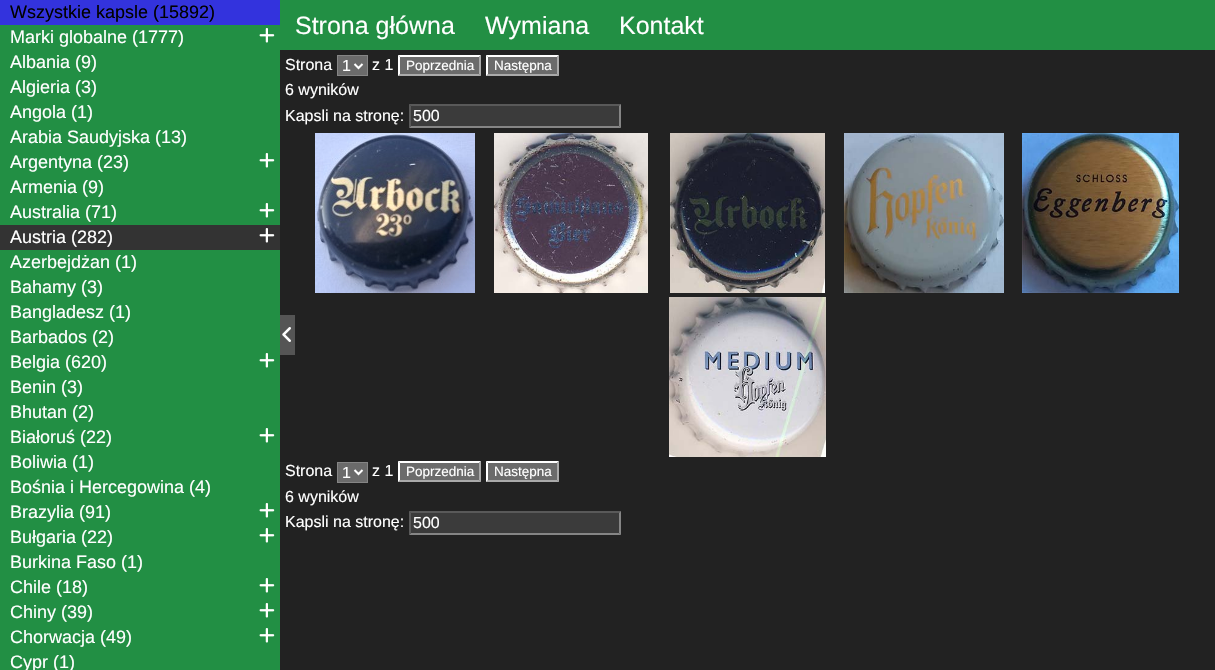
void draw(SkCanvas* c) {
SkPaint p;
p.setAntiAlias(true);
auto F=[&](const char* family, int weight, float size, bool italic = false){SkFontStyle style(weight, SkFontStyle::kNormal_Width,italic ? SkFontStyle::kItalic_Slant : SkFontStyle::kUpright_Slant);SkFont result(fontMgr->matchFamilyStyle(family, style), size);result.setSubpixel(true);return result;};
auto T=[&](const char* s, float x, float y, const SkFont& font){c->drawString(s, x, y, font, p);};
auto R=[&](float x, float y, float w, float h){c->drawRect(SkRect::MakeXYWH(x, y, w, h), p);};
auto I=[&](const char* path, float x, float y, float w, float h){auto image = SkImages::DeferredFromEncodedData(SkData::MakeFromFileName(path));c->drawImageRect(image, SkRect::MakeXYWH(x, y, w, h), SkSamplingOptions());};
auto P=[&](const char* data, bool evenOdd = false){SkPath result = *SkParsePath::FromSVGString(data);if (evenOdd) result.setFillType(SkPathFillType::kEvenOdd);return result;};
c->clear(0xff222222);
p.setColor(0xff228f44);
R(0,25,280,645);
p.setColor(0xff3333dd);
R(0,0,280,25);
auto f1 = F("Liberation Sans",400,18);
p.setColor(0xff000000);
T("Wszystkie kapsle (15892)",10,18,f1);
p.setColor(0xffffffff);
T("Marki globalne (1777)",10,43,f1);
I("1.png",259,28,16,15);
T("Albania (9)",10,68,f1);
T("Algieria (3)",10,93,f1);
T("Angola (1)",10,118,f1);
T("Arabia Saudyjska (13)",10,143,f1);
T("Argentyna (23)",10,168,f1);
I("1.png",259,153,16,15);
T("Armenia (9)",10,193,f1);
T("Australia (71)",10,218,f1);
I("1.png",259,203,16,15);
p.setColor(0xff333333);
R(0,225,280,25);
p.setColor(0xffffffff);
T("Austria (282)",10,243,f1);
I("2.png",259,228,16,15);
T("Azerbejdżan (1)",10,268,f1);
T("Bahamy (3)",10,293,f1);
T("Bangladesz (1)",10,318,f1);
T("Barbados (2)",10,343,f1);
T("Belgia (620)",10,368,f1);
I("1.png",259,353,16,15);
T("Benin (3)",10,393,f1);
T("Bhutan (2)",10,418,f1);
T("Białoruś (22)",10,443,f1);
I("1.png",259,428,16,15);
T("Boliwia (1)",10,468,f1);
T("Bośnia i Hercegowina (4)",10,493,f1);
T("Brazylia (91)",10,518,f1);
I("1.png",259,503,16,15);
T("Bułgaria (22)",10,543,f1);
I("1.png",259,528,16,15);
T("Burkina Faso (1)",10,568,f1);
T("Chile (18)",10,593,f1);
I("1.png",259,578,16,15);
T("Chiny (39)",10,618,f1);
I("1.png",259,603,16,15);
T("Chorwacja (49)",10,643,f1);
I("1.png",259,628,16,15);
T("Cypr (1)",10,668,f1);
p.setColor(0xff228f44);
R(280,0,935,50);
auto f2 = F("Liberation Sans",400,25);
p.setColor(0xffffffff);
T("Strona główna",295,34,f2);
T("Wymiana",485,34,f2);
T("Kontakt",619,34,f2);
auto f3 = F("Liberation Sans",400,16);
T("Strona",285,70,f3);
p.setColor(0xff6b6b6b);
c->drawRect(SkRect::MakeXYWH(337.5,55.5,30,20),p);
p.setStroke(true);
p.setStrokeWidth(1);
p.setColor(0xff858585);
c->drawRect(SkRect::MakeXYWH(337.5,55.5,30,20),p);
p.setStrokeWidth(2);
p.setColor(0xffffffff);
c->drawPath(P("M354.5 64l4 4l4-4"),p);
p.setStroke(false);
T("1",342,71,f3);
T("z 1",372,70,f3);
p.setColor(0xff6b6b6b);
R(398,55,83,21);
p.setColor(0xffffffff);
c->drawPath(P("M398 55h83l-2 2h-79z"),p);
p.setColor(0xffaaaaaa);
c->drawPath(P("M481 55v21l-2-2v-17z"),p);
c->drawPath(P("M481 76h-83l2-2h79z"),p);
p.setColor(0xffffffff);
c->drawPath(P("M398 76v-21l2 2v17z"),p);
auto f4 = F("Liberation Sans",400,13.5);
T("Poprzednia",406,70,f4);
p.setColor(0xff6b6b6b);
R(486,55,73,21);
p.setColor(0xffffffff);
c->drawPath(P("M486 55h73l-2 2h-69z"),p);
p.setColor(0xffaaaaaa);
c->drawPath(P("M559 55v21l-2-2v-17z"),p);
c->drawPath(P("M559 76h-73l2-2h69z"),p);
p.setColor(0xffffffff);
c->drawPath(P("M486 76v-21l2 2v17z"),p);
T("Następna",494,70,f4);
T("6 wyników",285,95,f3);
T("Kapsli na stronę:",285,121,f3);
p.setColor(0xff3b3b3b);
R(409,104,212,24);
p.setColor(0xff595959);
c->drawPath(P("M409 104h212l-2 2h-208z"),p);
p.setColor(0xff858585);
c->drawPath(P("M621 104v24l-2-2v-20z"),p);
c->drawPath(P("M621 128h-212l2-2h208z"),p);
p.setColor(0xff595959);
c->drawPath(P("M409 128v-24l2 2v20z"),p);
p.setColor(0xffffffff);
T("500",413,121,f3);
I("3.png",315,133,160,160);
I("4.png",494,133,154,160);
I("5.png",670,133,155,160);
I("6.png",844,133,160,160);
I("7.png",1022,133,157,160);
I("8.png",669,297,157,160);
T("Strona",285,476,f3);
p.setColor(0xff6b6b6b);
c->drawRect(SkRect::MakeXYWH(337.5,462.5,30,20),p);
p.setStroke(true);
p.setStrokeWidth(1);
p.setColor(0xff858585);
c->drawRect(SkRect::MakeXYWH(337.5,462.5,30,20),p);
p.setStrokeWidth(2);
p.setColor(0xffffffff);
c->drawPath(P("M354.5 470l4 4l4-4"),p);
p.setStroke(false);
T("1",342,478,f3);
T("z 1",372,476,f3);
p.setColor(0xff6b6b6b);
R(398,461,83,21);
p.setColor(0xffffffff);
c->drawPath(P("M398 461h83l-2 2h-79z"),p);
p.setColor(0xffaaaaaa);
c->drawPath(P("M481 461v21l-2-2v-17z"),p);
c->drawPath(P("M481 482h-83l2-2h79z"),p);
p.setColor(0xffffffff);
c->drawPath(P("M398 482v-21l2 2v17z"),p);
T("Poprzednia",406,476,f4);
p.setColor(0xff6b6b6b);
R(486,461,73,21);
p.setColor(0xffffffff);
c->drawPath(P("M486 461h73l-2 2h-69z"),p);
p.setColor(0xffaaaaaa);
c->drawPath(P("M559 461v21l-2-2v-17z"),p);
c->drawPath(P("M559 482h-73l2-2h69z"),p);
p.setColor(0xffffffff);
c->drawPath(P("M486 482v-21l2 2v17z"),p);
T("Następna",494,476,f4);
T("6 wyników",285,502,f3);
T("Kapsli na stronę:",285,527,f3);
p.setColor(0xff3b3b3b);
R(409,511,212,24);
p.setColor(0xff595959);
c->drawPath(P("M409 511h212l-2 2h-208z"),p);
p.setColor(0xff858585);
c->drawPath(P("M621 511v24l-2-2v-20z"),p);
c->drawPath(P("M621 535h-212l2-2h208z"),p);
p.setColor(0xff595959);
c->drawPath(P("M409 535v-24l2 2v20z"),p);
p.setColor(0xffffffff);
T("500",413,528,f3);
p.setColor(0xff555555);
R(280,315,15,40);
I("9.png",282,327,9,15);
}
